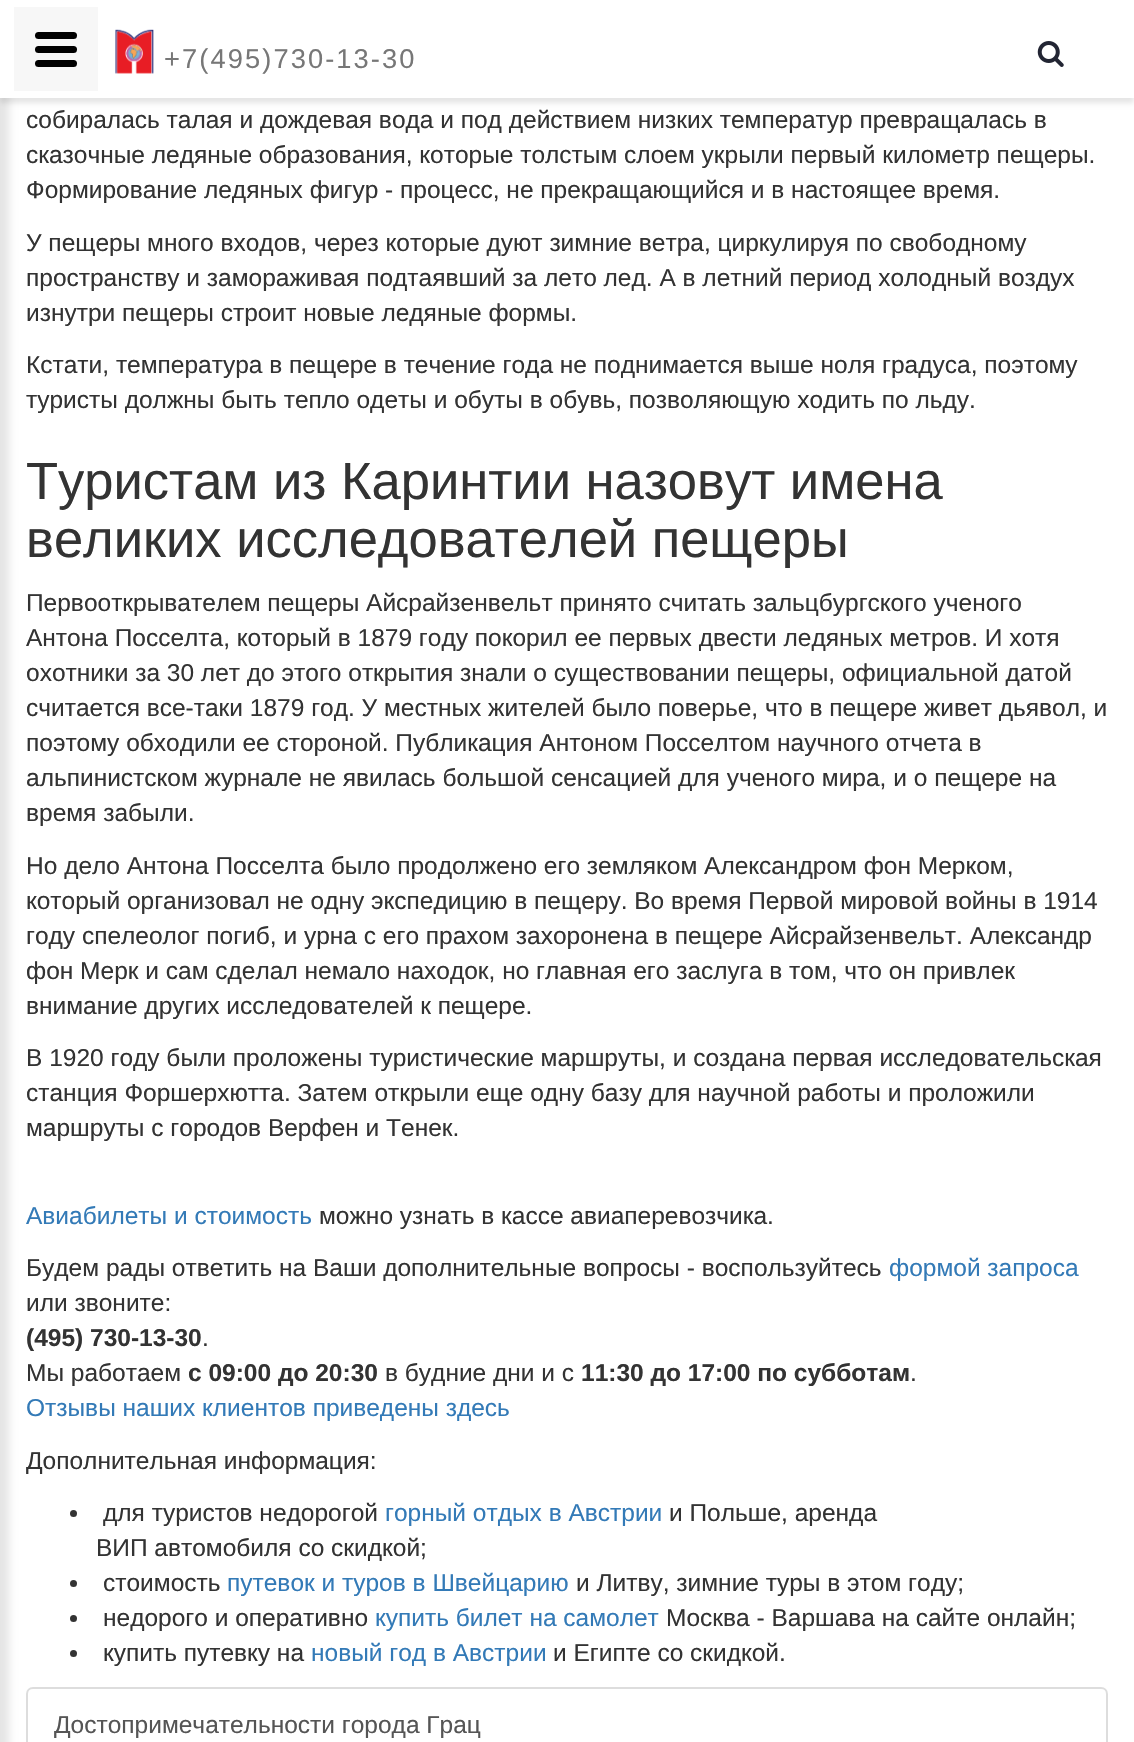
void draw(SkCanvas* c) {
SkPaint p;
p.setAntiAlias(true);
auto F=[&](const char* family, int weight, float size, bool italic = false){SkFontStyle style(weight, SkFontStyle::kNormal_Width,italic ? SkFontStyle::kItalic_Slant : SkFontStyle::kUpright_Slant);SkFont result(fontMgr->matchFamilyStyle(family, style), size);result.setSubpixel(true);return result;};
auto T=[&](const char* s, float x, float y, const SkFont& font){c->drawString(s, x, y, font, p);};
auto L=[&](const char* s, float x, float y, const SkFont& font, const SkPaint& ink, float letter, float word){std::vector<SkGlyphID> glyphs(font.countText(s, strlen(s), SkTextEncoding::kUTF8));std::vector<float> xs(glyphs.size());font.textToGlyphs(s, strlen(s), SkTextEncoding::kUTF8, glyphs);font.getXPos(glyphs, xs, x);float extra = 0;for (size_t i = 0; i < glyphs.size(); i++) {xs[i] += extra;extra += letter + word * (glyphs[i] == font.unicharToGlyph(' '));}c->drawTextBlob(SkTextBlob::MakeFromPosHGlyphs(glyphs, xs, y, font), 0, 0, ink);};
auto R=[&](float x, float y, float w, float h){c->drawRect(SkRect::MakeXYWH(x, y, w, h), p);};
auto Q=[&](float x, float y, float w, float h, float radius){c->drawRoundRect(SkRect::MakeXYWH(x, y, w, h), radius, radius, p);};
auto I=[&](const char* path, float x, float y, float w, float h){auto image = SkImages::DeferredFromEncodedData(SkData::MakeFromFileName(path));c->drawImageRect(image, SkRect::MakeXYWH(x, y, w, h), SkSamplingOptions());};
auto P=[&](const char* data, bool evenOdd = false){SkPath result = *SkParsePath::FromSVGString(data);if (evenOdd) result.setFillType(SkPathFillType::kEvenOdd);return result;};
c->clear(0xffffffff);
p.setColor(0x1a000000);
p.setMaskFilter(SkMaskFilter::MakeBlur(kNormal_SkBlurStyle, 4.5));
c->drawRect(SkRect::MakeXYWH(-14,-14,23,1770),p);
p.setMaskFilter(nullptr);
p.setMaskFilter(SkMaskFilter::MakeBlur(kNormal_SkBlurStyle, 2.5));
c->drawRect(SkRect::MakeXYWH(0,5,1134,98),p);
p.setMaskFilter(nullptr);
p.setColor(0xffffffff);
R(0,0,1134,98);
p.setColor(0xfff7f7f7);
R(14,7,84,84);
p.setColor(0xff000000);
Q(35,46,42,7,3.5);
Q(35,32,42,7,3.5);
Q(35,60,42,7,3.5);
I("1.png",115,29,39,45);
auto f1 = F("Liberation Sans",400,27.25);
p.setColor(0xff777777);
L("+7(495)730-13-30",164,68,f1,p,2.1,0);
I("2.png",1037,41,27,26);
auto f2 = F("Liberation Sans",400,24.5);
p.setColor(0xff333333);
T("собиралась талая и дождевая вода и под действием низких температур превращалась в",26,128,f2);
T("сказочные ледяные образования, которые толстым слоем укрыли первый километр пещеры.",26,163,f2);
T("Формирование ледяных фигур - процесс, не прекращающийся и в настоящее время.",26,198,f2);
T("У пещеры много входов, через которые дуют зимние ветра, циркулируя по свободному",26,251,f2);
T("пространству и замораживая подтаявший за лето лед. А в летний период холодный воздух",26,286,f2);
T("изнутри пещеры строит новые ледяные формы.",26,321,f2);
T("Кстати, температура в пещере в течение года не поднимается выше ноля градуса, поэтому",26,373,f2);
T("туристы должны быть тепло одеты и обуты в обувь, позволяющую ходить по льду.",26,408,f2);
auto f3 = F("Liberation Sans",400,52.5);
T("Туристам из Каринтии назовут имена",26,499,f3);
T("великих исследователей пещеры",26,557,f3);
T("Первооткрывателем пещеры Айсрайзенвельт принято считать зальцбургского ученого",26,611,f2);
T("Антона Посселта, который в 1879 году покорил ее первых двести ледяных метров. И хотя",26,646,f2);
T("охотники за 30 лет до этого открытия знали о существовании пещеры, официальной датой",26,681,f2);
T("считается все-таки 1879 год. У местных жителей было поверье, что в пещере живет дьявол, и",26,716,f2);
T("поэтому обходили ее стороной. Публикация Антоном Посселтом научного отчета в",26,751,f2);
T("альпинистском журнале не явилась большой сенсацией для ученого мира, и о пещере на",26,786,f2);
T("время забыли.",26,821,f2);
T("Но дело Антона Посселта было продолжено его земляком Александром фон Мерком,",26,874,f2);
T("который организовал не одну экспедицию в пещеру. Во время Первой мировой войны в 1914",26,909,f2);
T("году спелеолог погиб, и урна с его прахом захоронена в пещере Айсрайзенвельт. Александр",26,944,f2);
T("фон Мерк и сам сделал немало находок, но главная его заслуга в том, что он привлек",26,979,f2);
T("внимание других исследователей к пещере.",26,1014,f2);
T("В 1920 году были проложены туристические маршруты, и создана первая исследовательская",26,1066,f2);
T("станция Форшерхютта. Затем открыли еще одну базу для научной работы и проложили",26,1101,f2);
T("маршруты с городов Верфен и Тенек.",26,1136,f2);
p.setColor(0xff337ab7);
T("Авиабилеты и стоимость",26,1224,f2);
p.setColor(0xff333333);
T("можно узнать в кассе авиаперевозчика.",319,1224,f2);
T("Будем рады ответить на Ваши дополнительные вопросы - воспользуйтесь",26,1276,f2);
p.setColor(0xff337ab7);
T("формой запроса",889,1276,f2);
p.setColor(0xff333333);
T("или звоните:",26,1311,f2);
auto f4 = F("Liberation Sans",700,24.5);
T("(495) 730-13-30",26,1346,f4);
T(".",202,1346,f2);
T("Мы работаем",26,1381,f2);
T("с 09:00 до 20:30",188,1381,f4);
T("в будние дни и с",385,1381,f2);
T("11:30 до 17:00 по субботам",581,1381,f4);
T(".",910,1381,f2);
p.setColor(0xff337ab7);
T("Отзывы наших клиентов приведены здесь",26,1416,f2);
p.setColor(0xff333333);
T("Дополнительная информация:",26,1469,f2);
c->drawCircle(73.5,1513.5,3.5,p);
T("для туристов недорогой",103,1521,f2);
p.setColor(0xff337ab7);
T("горный отдых в Австрии",385,1521,f2);
p.setColor(0xff333333);
T("и Польше, аренда",669,1521,f2);
T("ВИП автомобиля со скидкой;",96,1556,f2);
c->drawCircle(73.5,1583.5,3.5,p);
T("стоимость",103,1591,f2);
p.setColor(0xff337ab7);
T("путевок и туров в Швейцарию",227,1591,f2);
p.setColor(0xff333333);
T("и Литву, зимние туры в этом году;",576,1591,f2);
c->drawCircle(73.5,1618.5,3.5,p);
T("недорого и оперативно",103,1626,f2);
p.setColor(0xff337ab7);
T("купить билет на самолет",375,1626,f2);
p.setColor(0xff333333);
T("Москва - Варшава на сайте онлайн;",666,1626,f2);
c->drawCircle(73.5,1653.5,3.5,p);
T("купить путевку на",103,1661,f2);
p.setColor(0xff337ab7);
T("новый год в Австрии",311,1661,f2);
p.setColor(0xff333333);
T("и Египте со скидкой.",553,1661,f2);
p.setStroke(true);
p.setStrokeWidth(2);
p.setColor(0xffdddddd);
c->drawPath(P("M33 1688h1068c3.5 0 6 2.5 6 6v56h-1080v-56c0-3.5 2.5-6 6-6z"),p);
p.setStroke(false);
p.setColor(0xff555555);
T("Достопримечательности города Грац",54,1733,f2);
}
